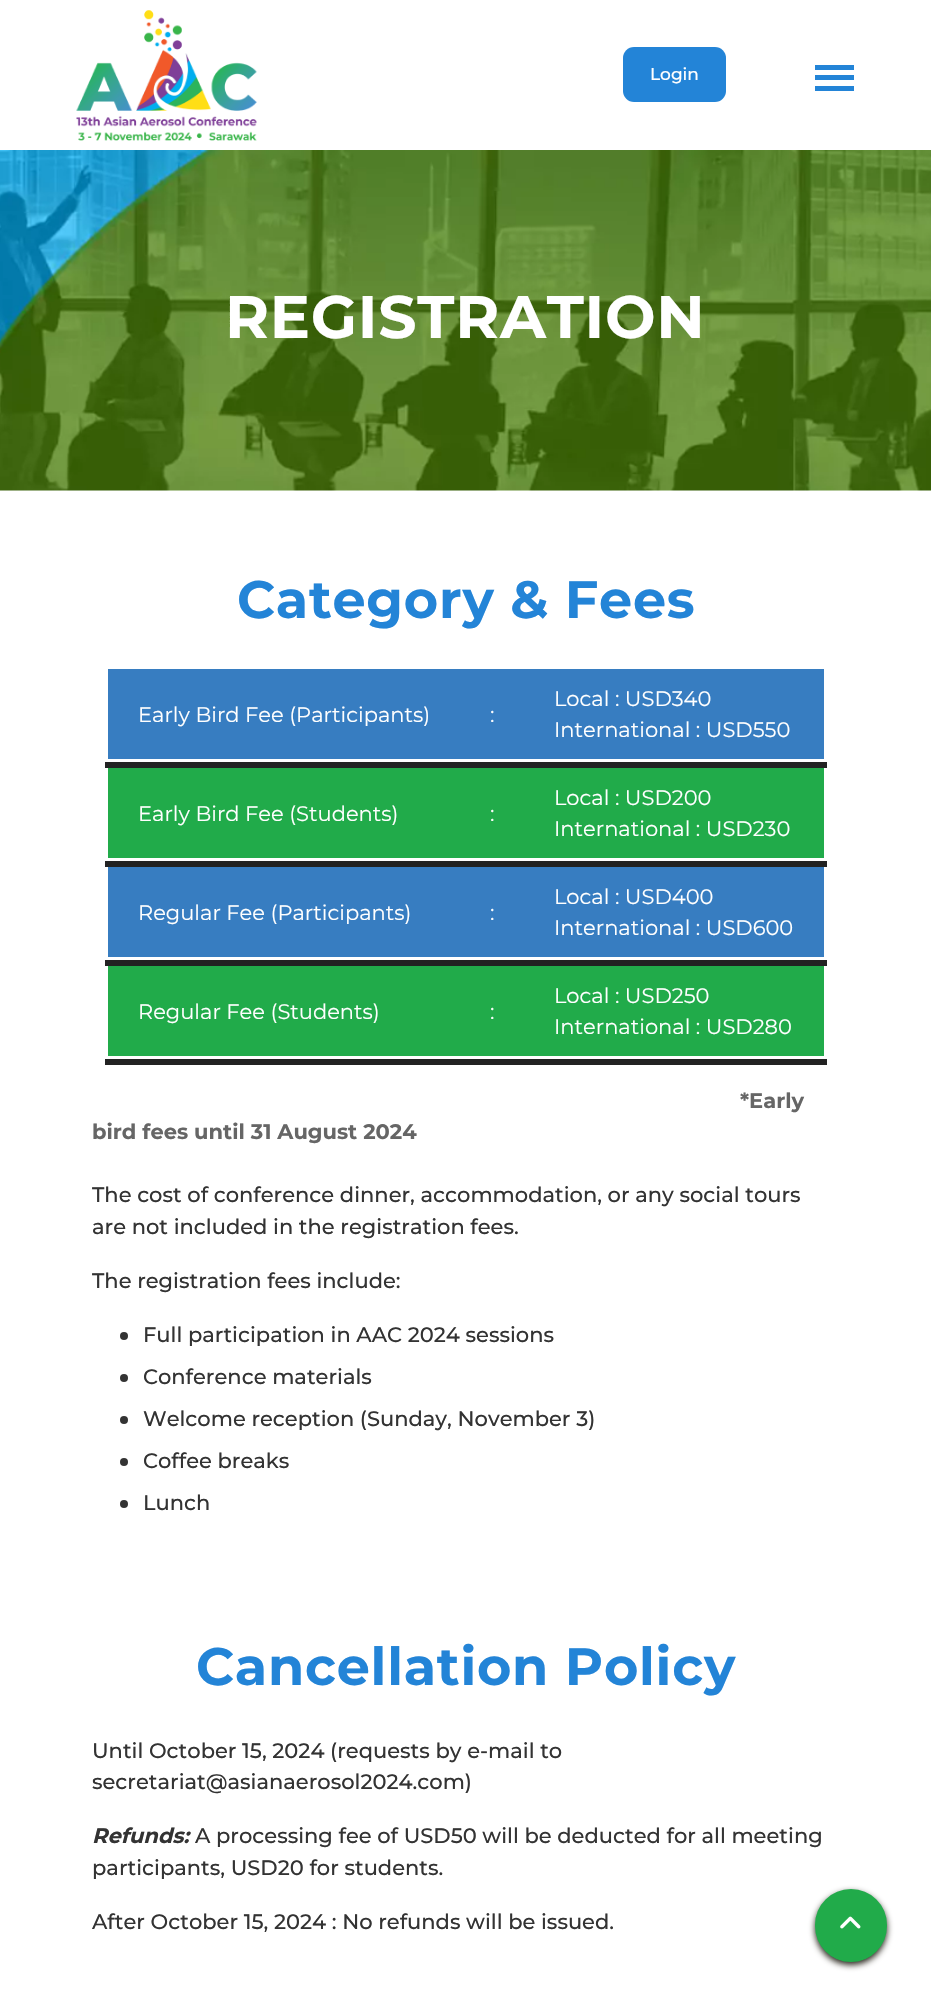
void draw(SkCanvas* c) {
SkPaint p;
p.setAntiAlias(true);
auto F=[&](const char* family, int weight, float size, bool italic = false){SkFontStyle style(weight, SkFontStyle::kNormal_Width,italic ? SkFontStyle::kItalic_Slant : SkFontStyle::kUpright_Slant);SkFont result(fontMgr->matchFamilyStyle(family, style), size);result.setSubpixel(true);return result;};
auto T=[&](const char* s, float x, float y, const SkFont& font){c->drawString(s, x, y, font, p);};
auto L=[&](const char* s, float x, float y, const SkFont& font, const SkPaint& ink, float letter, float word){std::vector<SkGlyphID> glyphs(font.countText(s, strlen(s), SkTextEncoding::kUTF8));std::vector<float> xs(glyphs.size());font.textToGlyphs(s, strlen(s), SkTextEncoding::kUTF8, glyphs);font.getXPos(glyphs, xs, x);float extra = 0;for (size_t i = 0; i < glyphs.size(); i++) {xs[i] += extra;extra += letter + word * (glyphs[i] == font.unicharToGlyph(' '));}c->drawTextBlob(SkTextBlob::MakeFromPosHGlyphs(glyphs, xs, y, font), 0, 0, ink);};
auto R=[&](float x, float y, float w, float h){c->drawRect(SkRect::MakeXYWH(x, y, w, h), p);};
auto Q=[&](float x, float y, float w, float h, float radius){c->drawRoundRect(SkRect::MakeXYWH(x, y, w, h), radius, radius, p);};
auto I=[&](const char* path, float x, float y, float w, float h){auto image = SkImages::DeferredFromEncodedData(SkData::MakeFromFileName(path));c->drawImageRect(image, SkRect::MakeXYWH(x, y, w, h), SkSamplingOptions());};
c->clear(0xffffffff);
I("1.png",76,10,181,131);
p.setColor(0xff2384d7);
Q(623,47,103,55,11);
auto f1 = F("Montserrat",500,17);
p.setColor(0xffffffff);
T("Login",650,80,f1);
p.setColor(0xff2384d7);
R(815,65,39,5);
R(815,75,39,5);
R(815,86,39,5);
I("2.png",0,150,931,341);
auto f2 = F("Montserrat",700,60);
p.setColor(0xffffffff);
L("REGISTRATION",225,338,f2,p,.75,0);
auto f3 = F("Montserrat",700,52.5);
p.setColor(0xff2384d7);
L("Category & Fees",237,618,f3,p,.75,0);
p.setColor(0xff377dc1);
R(108,669,716,90);
p.setColor(0xff222222);
R(105,762,722,6);
auto f4 = F("Montserrat",400,21);
p.setColor(0xffffffff);
T("Early Bird Fee (Participants)",138,722,f4);
T(":",490,722,f4);
T("Local : USD340",554,706,f4);
T("International : USD550",554,737,f4);
p.setColor(0xff21ab4a);
R(108,768,716,90);
p.setColor(0xff222222);
R(105,861,722,6);
p.setColor(0xffffffff);
T("Early Bird Fee (Students)",138,821,f4);
T(":",490,821,f4);
T("Local : USD200",554,805,f4);
T("International : USD230",554,836,f4);
p.setColor(0xff377dc1);
R(108,867,716,90);
p.setColor(0xff222222);
R(105,960,722,6);
p.setColor(0xffffffff);
T("Regular Fee (Participants)",138,920,f4);
T(":",490,920,f4);
T("Local : USD400",554,904,f4);
T("International : USD600",554,935,f4);
p.setColor(0xff21ab4a);
R(108,966,716,90);
p.setColor(0xff222222);
R(105,1059,722,6);
p.setColor(0xffffffff);
T("Regular Fee (Students)",138,1019,f4);
T(":",490,1019,f4);
T("Local : USD250",554,1003,f4);
T("International : USD280",554,1034,f4);
auto f5 = F("Montserrat",700,21);
p.setColor(0xff666666);
T("*Early",740,1108,f5);
T("bird fees until 31 August 2024",92,1139,f5);
auto f6 = F("Montserrat",500,21);
p.setColor(0xff333333);
T("The cost of conference dinner, accommodation, or any social tours",92,1202,f6);
T("are not included in the registration fees.",92,1234,f6);
T("The registration fees include:",92,1288,f6);
c->drawCircle(124,1336,4,p);
T("Full participation in AAC 2024 sessions",143,1342,f6);
c->drawCircle(124,1378,4,p);
T("Conference materials",143,1384,f6);
c->drawCircle(124,1420,4,p);
T("Welcome reception (Sunday, November 3)",143,1426,f6);
c->drawCircle(124,1462,4,p);
T("Coffee breaks",143,1468,f6);
c->drawCircle(124,1504,4,p);
T("Lunch",143,1510,f6);
p.setColor(0xff2384d7);
L("Cancellation Policy",196,1685,f3,p,.75,0);
p.setColor(0xff333333);
T("Until October 15, 2024 (requests by e-mail to",92,1758,f6);
T("secretariat@asianaerosol2024.com)",92,1789,f6);
auto f7 = F("Montserrat",700,21,true);
T("Refunds:",92,1843,f7);
T("A processing fee of USD50 will be deducted for all meeting",195,1843,f6);
T("participants, USD20 for students.",92,1875,f6);
T("After October 15, 2024 : No refunds will be issued.",92,1929,f6);
p.setColor(0xff252219);
p.setMaskFilter(SkMaskFilter::MakeBlur(kNormal_SkBlurStyle, 3));
c->drawRoundRect(SkRect::MakeXYWH(815,1892,72,73),36,36,p);
p.setMaskFilter(nullptr);
p.setColor(0xff21ab4a);
c->drawRoundRect(SkRect::MakeXYWH(816,1890,70,71),35,35,p);
p.setStroke(true);
p.setStrokeWidth(2);
c->drawRoundRect(SkRect::MakeXYWH(816,1890,70,71),35,35,p);
I("3.png",840,1916,21,13);
}
